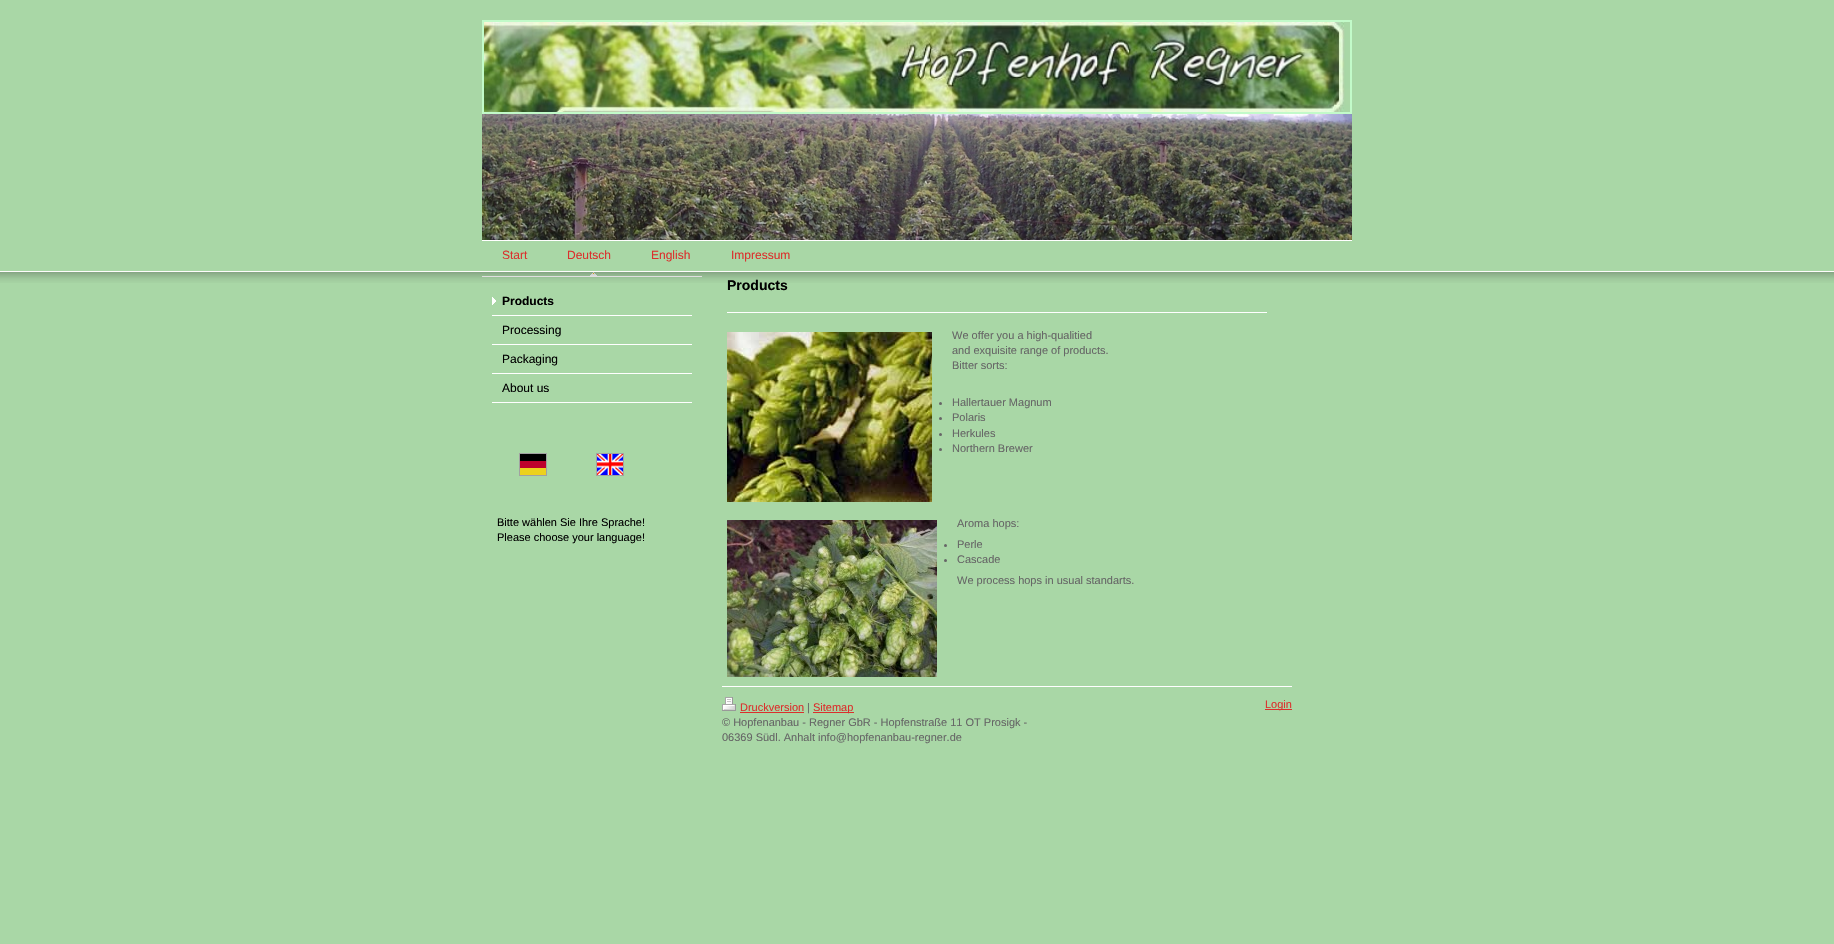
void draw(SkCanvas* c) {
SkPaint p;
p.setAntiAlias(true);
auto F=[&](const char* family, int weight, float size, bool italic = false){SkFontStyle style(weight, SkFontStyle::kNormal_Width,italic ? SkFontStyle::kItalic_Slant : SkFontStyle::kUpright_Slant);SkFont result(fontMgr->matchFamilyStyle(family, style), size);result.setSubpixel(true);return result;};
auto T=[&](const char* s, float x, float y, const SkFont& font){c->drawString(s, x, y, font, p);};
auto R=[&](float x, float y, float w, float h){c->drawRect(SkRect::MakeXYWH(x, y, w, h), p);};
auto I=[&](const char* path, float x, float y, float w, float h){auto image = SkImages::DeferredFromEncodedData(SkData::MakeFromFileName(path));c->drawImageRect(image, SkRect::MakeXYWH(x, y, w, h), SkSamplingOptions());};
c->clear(0xffa9d7a6);
p.setColor(0xffffffff);
R(482,240,870,1);
p.setStroke(true);
p.setStrokeWidth(2);
p.setColor(0xffc2fac9);
c->drawRect(SkRect::MakeXYWH(483,21,868,92),p);
I("1.png",484,22,866,90);
I("2.png",482,114,870,126);
auto f1 = F("Liberation Sans",400,12);
p.setStroke(false);
p.setColor(0xffdb2f2c);
T("Start",502,259,f1);
T("Deutsch",567,259,f1);
T("English",651,259,f1);
T("Impressum",731,259,f1);
I("4.png",482,272,220,5);
auto f2 = F("Liberation Sans",700,14);
p.setColor(0xff000000);
T("Products",727,290,f2);
I("3.png",0,271,1834,12);
I("5.png",492,297,4,8);
p.setColor(0xffffffff);
R(492,315,200,1);
auto f3 = F("Liberation Sans",700,12);
p.setColor(0xff000000);
T("Products",502,305,f3);
p.setColor(0xffffffff);
R(492,344,200,1);
p.setColor(0xff000000);
T("Processing",502,334,f1);
p.setColor(0xffffffff);
R(492,373,200,1);
p.setColor(0xff000000);
T("Packaging",502,363,f1);
p.setColor(0xffffffff);
R(492,402,200,1);
p.setColor(0xff000000);
T("About us",502,392,f1);
I("6.png",519,453,28,23);
I("7.png",596,453,28,23);
auto f4 = F("Liberation Sans",400,11);
T("Bitte wählen Sie Ihre Sprache!",497,526,f4);
T("Please choose your language!",497,541,f4);
p.setColor(0xffffffff);
R(727,312,540,1);
I("8.png",727,332,205,170);
p.setColor(0xff666666);
T("We offer you a high-qualitied",952,339,f4);
T("and exquisite range of products.",952,354,f4);
T("Bitter sorts:",952,369,f4);
c->drawCircle(940.5,403.5,1.5,p);
T("Hallertauer Magnum",952,406,f4);
c->drawCircle(940.5,418.5,1.5,p);
T("Polaris",952,421,f4);
c->drawCircle(940.5,434.5,1.5,p);
T("Herkules",952,437,f4);
c->drawCircle(940.5,449.5,1.5,p);
T("Northern Brewer",952,452,f4);
I("9.png",727,520,210,157);
T("Aroma hops:",957,527,f4);
c->drawCircle(945.5,545.5,1.5,p);
T("Perle",957,548,f4);
c->drawCircle(945.5,560.5,1.5,p);
T("Cascade",957,563,f4);
T("We process hops in usual standarts.",957,584,f4);
p.setColor(0xffffffff);
R(722,686,570,1);
I("10.png",722,697,14,14);
p.setColor(0xffdb2f2c);
T("Druckversion",740,711,f4);
R(740,712,64,1);
p.setColor(0xff666666);
T("|",807,711,f4);
p.setColor(0xffdb2f2c);
R(813,712,41,1);
T("Sitemap",813,711,f4);
p.setColor(0xff666666);
T("© Hopfenanbau - Regner GbR - Hopfenstraße 11 OT Prosigk -",722,726,f4);
T("06369 Südl. Anhalt info@hopfenanbau-regner.de",722,741,f4);
p.setColor(0xffdb2f2c);
R(1265,709,27,1);
T("Login",1265,708,f4);
}
